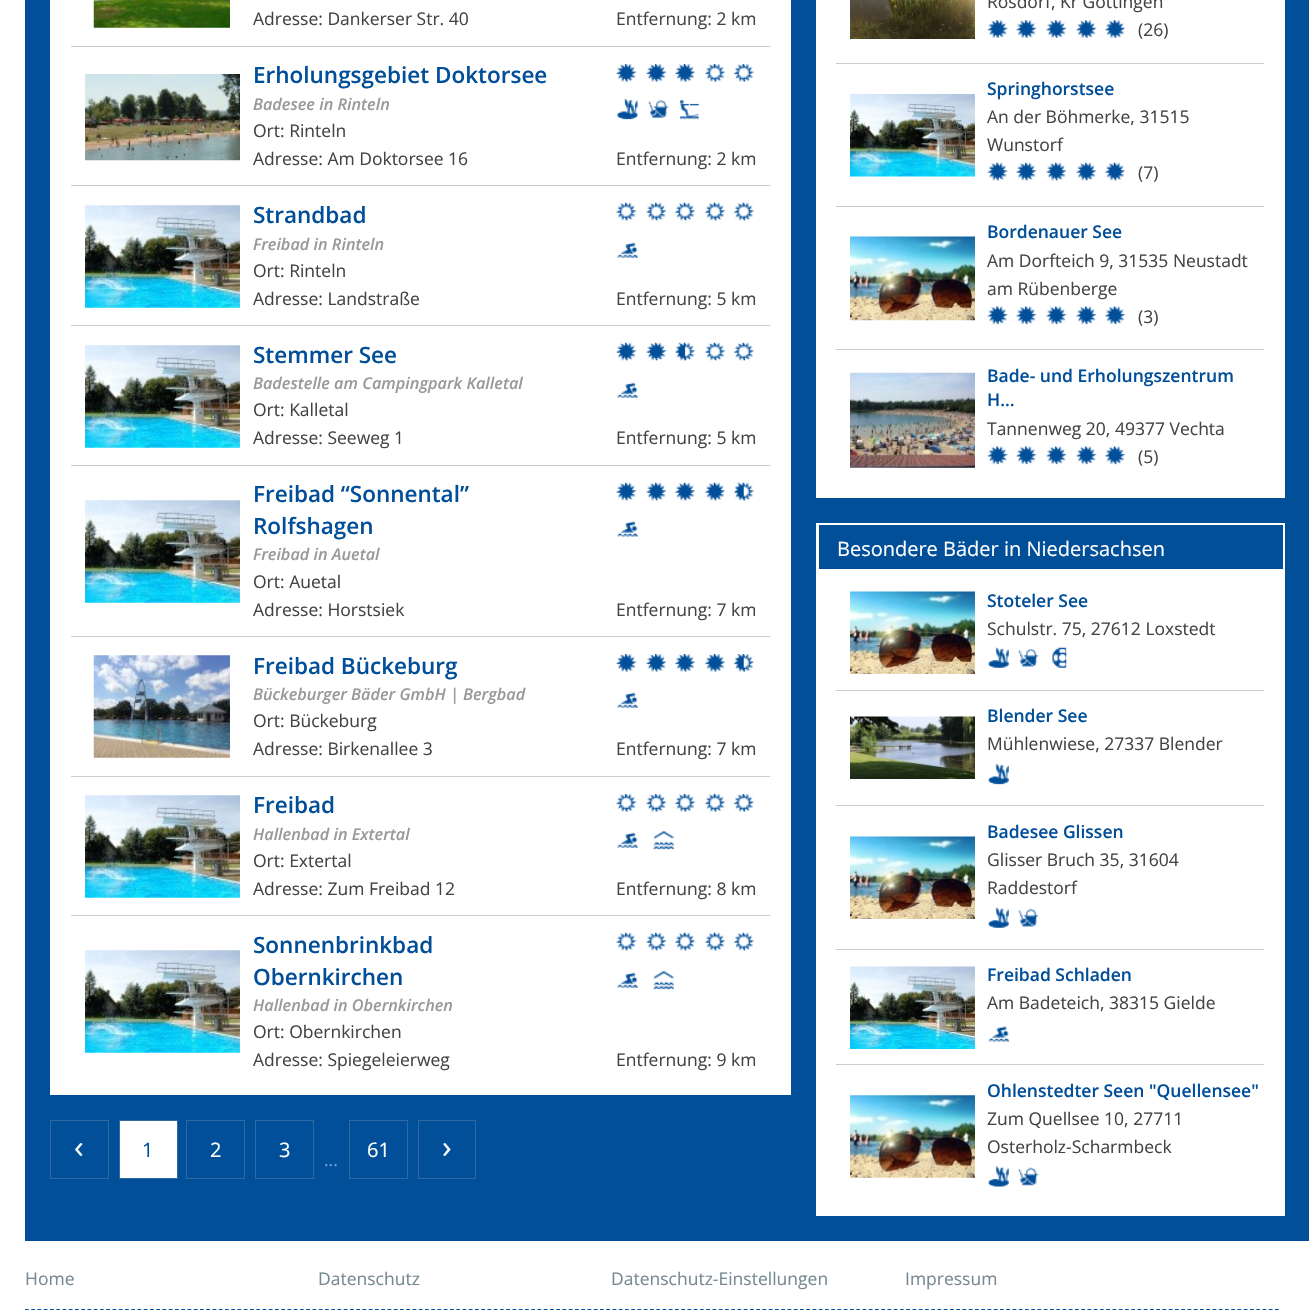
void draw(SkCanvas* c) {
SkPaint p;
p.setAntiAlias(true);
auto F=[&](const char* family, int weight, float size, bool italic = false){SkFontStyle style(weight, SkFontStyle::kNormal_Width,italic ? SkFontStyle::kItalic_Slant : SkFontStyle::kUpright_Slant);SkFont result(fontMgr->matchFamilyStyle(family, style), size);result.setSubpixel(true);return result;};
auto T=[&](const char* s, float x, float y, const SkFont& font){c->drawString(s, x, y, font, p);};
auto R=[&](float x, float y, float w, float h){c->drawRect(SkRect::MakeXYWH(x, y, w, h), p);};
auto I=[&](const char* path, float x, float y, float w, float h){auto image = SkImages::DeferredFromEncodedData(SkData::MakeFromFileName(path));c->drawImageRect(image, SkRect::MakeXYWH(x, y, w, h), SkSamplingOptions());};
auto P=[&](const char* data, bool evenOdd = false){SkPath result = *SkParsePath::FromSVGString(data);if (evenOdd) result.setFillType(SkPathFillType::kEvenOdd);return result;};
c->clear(0xffffffff);
p.setColor(0xff024f99);
R(25,0,1284,1241);
p.setStroke(true);
p.setStrokeWidth(3);
p.setColor(0xffffffff);
c->drawRect(SkRect::MakeXYWH(51.5,-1.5,738,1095),p);
p.setStroke(false);
R(53,0,735,1092);
p.setColor(0xffcccccc);
R(71,46,699,1);
I("1.png",93,0,137,28);
auto f1 = F("Open Sans",400,17.5);
p.setColor(0xff444444);
T("Adresse: Dankerser Str. 40",253,25,f1);
T("Entfernung: 2 km",616,25,f1);
p.setColor(0xffcccccc);
R(71,185,699,1);
I("2.png",85,74,155,87);
auto f2 = F("Open Sans",600,22.5);
p.setColor(0xff024f99);
T("Erholungsgebiet Doktorsee",253,83,f2);
auto f3 = F("Open Sans",600,16.25,true);
p.setColor(0xff999999);
T("Badesee in Rinteln",253,110,f3);
p.setColor(0xff444444);
T("Ort: Rinteln",253,137,f1);
T("Adresse: Am Doktorsee 16",253,165,f1);
I("3.png",616,64,21,18);
I("3.png",646,64,21,18);
I("4.png",675,64,21,18);
I("5.png",705,64,21,18);
I("6.png",733,64,21,18);
I("7.png",617,98,21,22);
I("8.png",648,100,21,18);
I("9.png",680,100,19,20);
T("Entfernung: 2 km",616,165,f1);
p.setColor(0xffcccccc);
R(71,325,699,1);
I("10.png",85,205,155,103);
p.setColor(0xff024f99);
T("Strandbad",253,223,f2);
p.setColor(0xff999999);
T("Freibad in Rinteln",253,250,f3);
p.setColor(0xff444444);
T("Ort: Rinteln",253,277,f1);
T("Adresse: Landstraße",253,305,f1);
I("11.png",616,202,21,19);
I("11.png",646,202,21,19);
I("12.png",675,202,21,19);
I("12.png",705,202,21,19);
I("13.png",733,202,21,19);
I("14.png",617,242,21,16);
T("Entfernung: 5 km",616,305,f1);
p.setColor(0xffcccccc);
R(71,465,699,1);
I("15.png",85,345,155,103);
p.setColor(0xff024f99);
T("Stemmer See",253,363,f2);
p.setColor(0xff999999);
T("Badestelle am Campingpark Kalletal",253,389,f3);
p.setColor(0xff444444);
T("Ort: Kalletal",253,416,f1);
T("Adresse: Seeweg 1",253,444,f1);
I("16.png",616,342,21,19);
I("16.png",646,342,21,19);
I("17.png",675,342,21,19);
I("12.png",705,342,21,19);
I("13.png",733,342,21,19);
I("14.png",617,382,21,16);
T("Entfernung: 5 km",616,444,f1);
p.setColor(0xffcccccc);
R(71,636,699,1);
I("10.png",85,500,155,103);
p.setColor(0xff024f99);
T("Freibad “Sonnental”",253,502,f2);
T("Rolfshagen",253,534,f2);
p.setColor(0xff999999);
T("Freibad in Auetal",253,560,f3);
p.setColor(0xff444444);
T("Ort: Auetal",253,588,f1);
T("Adresse: Horstsiek",253,616,f1);
I("16.png",616,482,21,19);
I("16.png",646,482,21,19);
I("18.png",675,482,21,19);
I("18.png",705,482,21,19);
I("19.png",733,482,21,19);
I("20.png",617,521,21,16);
T("Entfernung: 7 km",616,616,f1);
p.setColor(0xffcccccc);
R(71,776,699,1);
I("21.png",93,655,137,103);
p.setColor(0xff024f99);
T("Freibad Bückeburg",253,674,f2);
p.setColor(0xff999999);
T("Bückeburger Bäder GmbH | Bergbad",253,700,f3);
p.setColor(0xff444444);
T("Ort: Bückeburg",253,727,f1);
T("Adresse: Birkenallee 3",253,755,f1);
I("22.png",616,654,21,18);
I("22.png",646,654,21,18);
I("23.png",675,654,21,18);
I("23.png",705,654,21,18);
I("24.png",733,654,21,18);
I("14.png",617,692,21,16);
T("Entfernung: 7 km",616,755,f1);
p.setColor(0xffcccccc);
R(71,915,699,1);
I("25.png",85,795,155,103);
p.setColor(0xff024f99);
T("Freibad",253,813,f2);
p.setColor(0xff999999);
T("Hallenbad in Extertal",253,840,f3);
p.setColor(0xff444444);
T("Ort: Extertal",253,867,f1);
T("Adresse: Zum Freibad 12",253,895,f1);
I("26.png",616,794,21,18);
I("26.png",646,794,21,18);
I("27.png",675,794,21,18);
I("27.png",705,794,21,18);
I("28.png",733,794,21,18);
I("14.png",617,832,21,16);
I("29.png",653,830,21,20);
T("Entfernung: 8 km",616,895,f1);
I("10.png",85,950,155,103);
p.setColor(0xff024f99);
T("Sonnenbrinkbad",253,953,f2);
T("Obernkirchen",253,985,f2);
p.setColor(0xff999999);
T("Hallenbad in Obernkirchen",253,1011,f3);
p.setColor(0xff444444);
T("Ort: Obernkirchen",253,1038,f1);
T("Adresse: Spiegeleierweg",253,1066,f1);
I("11.png",616,932,21,19);
I("11.png",646,932,21,19);
I("12.png",675,932,21,19);
I("12.png",705,932,21,19);
I("13.png",733,932,21,19);
I("14.png",617,972,21,16);
I("29.png",653,970,21,20);
T("Entfernung: 9 km",616,1066,f1);
p.setStroke(true);
p.setStrokeWidth(1);
p.setColor(0xff30689f);
c->drawRect(SkRect::MakeXYWH(50.5,1120.5,58,58),p);
auto f4 = F("Open Sans",400,32);
p.setStroke(false);
p.setColor(0xffffffff);
T("‹",74,1158,f4);
c->drawRect(SkRect::MakeXYWH(119.5,1120.5,58,58),p);
p.setStroke(true);
p.setColor(0xff30689f);
c->drawRect(SkRect::MakeXYWH(119.5,1120.5,58,58),p);
auto f5 = F("Open Sans",400,20);
p.setStroke(false);
p.setColor(0xff024f99);
T("1",142,1157,f5);
p.setStroke(true);
p.setColor(0xff30689f);
c->drawRect(SkRect::MakeXYWH(186.5,1120.5,58,58),p);
p.setStroke(false);
p.setColor(0xffffffff);
T("2",210,1157,f5);
p.setStroke(true);
p.setColor(0xff30689f);
c->drawRect(SkRect::MakeXYWH(255.5,1120.5,58,58),p);
p.setStroke(false);
p.setColor(0xffffffff);
T("3",279,1157,f5);
p.setStroke(true);
p.setColor(0xff30689f);
c->drawRect(SkRect::MakeXYWH(349.5,1120.5,58,58),p);
p.setStroke(false);
p.setColor(0xffffffff);
T("61",367,1157,f5);
p.setStroke(true);
p.setColor(0xff30689f);
c->drawRect(SkRect::MakeXYWH(418.5,1120.5,57,58),p);
p.setStroke(false);
p.setColor(0xffffffff);
T("›",442,1158,f4);
p.setColor(0xff71a1d9);
T("...",324,1166,f1);
p.setStroke(true);
p.setStrokeWidth(3);
p.setColor(0xffffffff);
c->drawRect(SkRect::MakeXYWH(817.5,-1.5,466,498),p);
p.setStroke(false);
R(819,0,463,495);
p.setColor(0xffcccccc);
R(836,63,428,1);
I("30.png",850,0,125,39);
p.setColor(0xff444444);
T("Rosdorf, Kr Göttingen",987,8,f1);
I("31.png",987,20,21,18);
I("32.png",1016,20,21,18);
I("32.png",1046,20,21,18);
I("32.png",1076,20,21,18);
I("33.png",1105,20,21,18);
T("(26)",1138,36,f1);
p.setColor(0xffcccccc);
R(836,206,428,1);
I("34.png",850,94,125,83);
auto f6 = F("Open Sans",600,17.5);
p.setColor(0xff024f99);
T("Springhorstsee",987,95,f6);
p.setColor(0xff444444);
T("An der Böhmerke, 31515",987,123,f1);
T("Wunstorf",987,151,f1);
I("35.png",987,162,21,19);
I("16.png",1016,162,21,19);
I("16.png",1046,162,21,19);
I("16.png",1076,162,21,19);
I("18.png",1105,162,21,19);
T("(7)",1138,179,f1);
p.setColor(0xffcccccc);
R(836,349,428,1);
I("36.png",850,236,125,85);
p.setColor(0xff024f99);
T("Bordenauer See",987,238,f6);
p.setColor(0xff444444);
T("Am Dorfteich 9, 31535 Neustadt",987,267,f1);
T("am Rübenberge",987,295,f1);
I("37.png",987,306,21,19);
I("38.png",1016,306,21,19);
I("38.png",1046,306,21,19);
I("38.png",1076,306,21,19);
I("39.png",1105,306,21,19);
T("(3)",1138,323,f1);
I("40.png",850,372,125,96);
p.setColor(0xff024f99);
T("Bade- und Erholungszentrum",987,382,f6);
T("H...",987,406,f6);
p.setColor(0xff444444);
T("Tannenweg 20, 49377 Vechta",987,435,f1);
I("37.png",987,446,21,19);
I("38.png",1016,446,21,19);
I("38.png",1046,446,21,19);
I("38.png",1076,446,21,19);
I("39.png",1105,446,21,19);
T("(5)",1138,463,f1);
p.setStroke(true);
p.setColor(0xffffffff);
c->drawRect(SkRect::MakeXYWH(817.5,524.5,466,690),p);
p.setStroke(false);
p.setColor(0xff024f99);
R(819,525,464,44);
p.setColor(0xffffffff);
T("Besondere Bäder in Niedersachsen",837,556,f5);
R(819,569,463,644);
p.setColor(0xffcccccc);
R(836,690,428,1);
I("41.png",850,591,125,83);
p.setColor(0xff024f99);
T("Stoteler See",987,607,f6);
p.setColor(0xff444444);
T("Schulstr. 75, 27612 Loxstedt",987,635,f1);
I("42.png",988,647,21,21);
I("43.png",1018,648,21,19);
I("44.png",1052,647,15,21);
p.setColor(0xffcccccc);
R(836,805,428,1);
I("45.png",850,716,125,63);
p.setColor(0xff024f99);
T("Blender See",987,722,f6);
p.setColor(0xff444444);
T("Mühlenwiese, 27337 Blender",987,750,f1);
I("46.png",988,763,21,22);
p.setColor(0xffcccccc);
R(836,949,428,1);
I("41.png",850,836,125,83);
p.setColor(0xff024f99);
T("Badesee Glissen",987,838,f6);
p.setColor(0xff444444);
T("Glisser Bruch 35, 31604",987,866,f1);
T("Raddestorf",987,894,f1);
I("42.png",988,907,21,21);
I("43.png",1018,908,21,19);
p.setColor(0xffcccccc);
R(836,1064,428,1);
I("47.png",850,966,125,83);
p.setColor(0xff024f99);
T("Freibad Schladen",987,981,f6);
p.setColor(0xff444444);
T("Am Badeteich, 38315 Gielde",987,1009,f1);
I("48.png",988,1026,21,16);
I("49.png",850,1095,125,83);
p.setColor(0xff024f99);
T("Ohlenstedter Seen \"Quellensee\"",987,1097,f6);
p.setColor(0xff444444);
T("Zum Quellsee 10, 27711",987,1125,f1);
T("Osterholz-Scharmbeck",987,1153,f1);
I("50.png",988,1166,21,21);
I("51.png",1018,1167,21,19);
p.setStroke(true);
p.setStrokeWidth(1.2);
p.setColor(0xff024f99);
p.setPathEffect(SkDashPathEffect::Make({{3.75f,2.5f}}, 0));
c->drawPath(P("M25 1309.5h1255"),p);
p.setPathEffect(nullptr);
p.setStroke(false);
p.setColor(0xff768992);
T("Home",25,1285,f1);
T("Datenschutz",318,1285,f1);
T("Datenschutz-Einstellungen",611,1285,f1);
T("Impressum",905,1285,f1);
}
